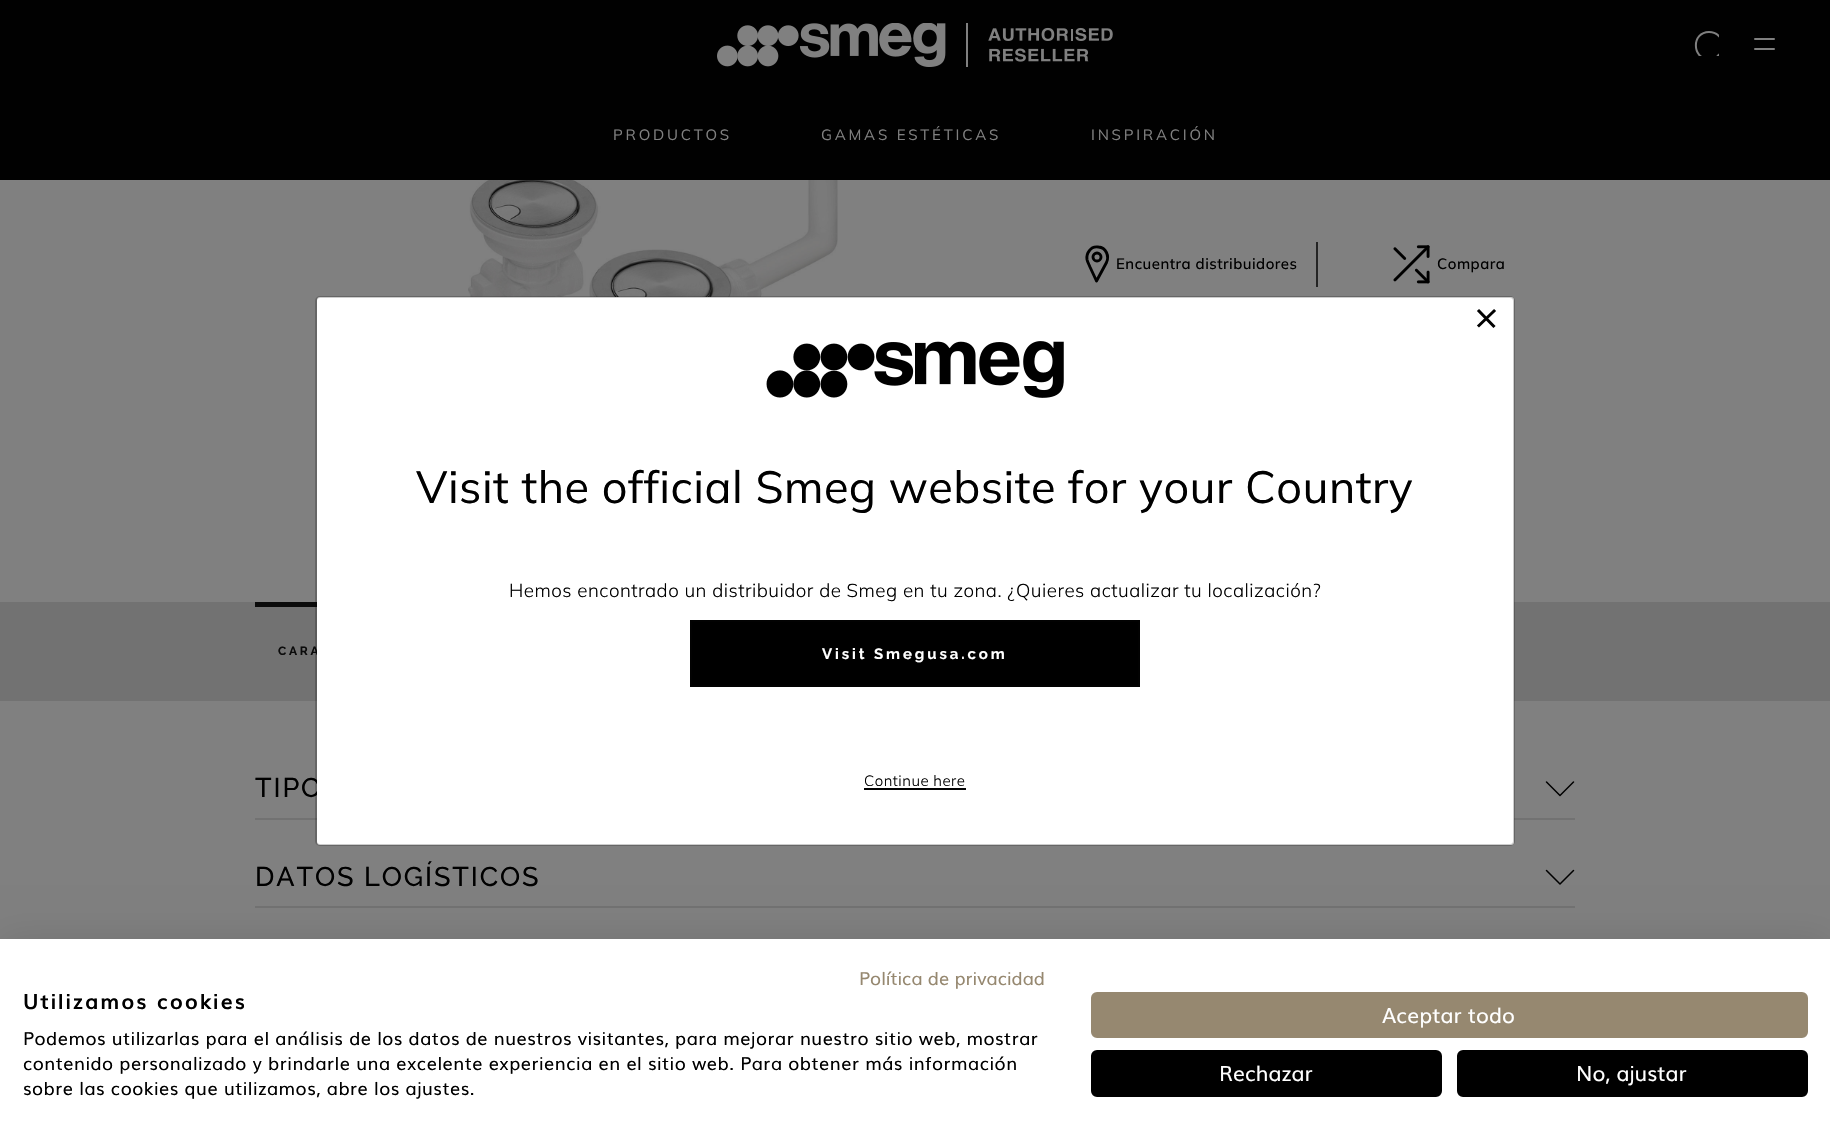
void draw(SkCanvas* c) {
SkPaint p;
p.setAntiAlias(true);
auto F=[&](const char* family, int weight, float size, bool italic = false){SkFontStyle style(weight, SkFontStyle::kNormal_Width,italic ? SkFontStyle::kItalic_Slant : SkFontStyle::kUpright_Slant);SkFont result(fontMgr->matchFamilyStyle(family, style), size);result.setSubpixel(true);return result;};
auto T=[&](const char* s, float x, float y, const SkFont& font){c->drawString(s, x, y, font, p);};
auto L=[&](const char* s, float x, float y, const SkFont& font, const SkPaint& ink, float letter, float word){std::vector<SkGlyphID> glyphs(font.countText(s, strlen(s), SkTextEncoding::kUTF8));std::vector<float> xs(glyphs.size());font.textToGlyphs(s, strlen(s), SkTextEncoding::kUTF8, glyphs);font.getXPos(glyphs, xs, x);float extra = 0;for (size_t i = 0; i < glyphs.size(); i++) {xs[i] += extra;extra += letter + word * (glyphs[i] == font.unicharToGlyph(' '));}c->drawTextBlob(SkTextBlob::MakeFromPosHGlyphs(glyphs, xs, y, font), 0, 0, ink);};
auto R=[&](float x, float y, float w, float h){c->drawRect(SkRect::MakeXYWH(x, y, w, h), p);};
auto Q=[&](float x, float y, float w, float h, float radius){c->drawRoundRect(SkRect::MakeXYWH(x, y, w, h), radius, radius, p);};
auto I=[&](const char* path, float x, float y, float w, float h){auto image = SkImages::DeferredFromEncodedData(SkData::MakeFromFileName(path));c->drawImageRect(image, SkRect::MakeXYWH(x, y, w, h), SkSamplingOptions());};
auto P=[&](const char* data, bool evenOdd = false){SkPath result = *SkParsePath::FromSVGString(data);if (evenOdd) result.setFillType(SkPathFillType::kEvenOdd);return result;};
c->clear(0xff808080);
p.setColor(0xff010101);
R(0,0,1830,180);
I("1.png",717,23,396,44);
c->save();
c->clipRect(SkRect::MakeXYWH(1692,29,27,27));
p.setStroke(true);
p.setStrokeWidth(2);
p.setStrokeCap(SkPaint::kRound_Cap);
p.setStrokeJoin(SkPaint::kRound_Join);
p.setColor(0xff808080);
c->drawPath(P("M1709 59c18 0 18-27 0-27c-17.5 0-17.5 27 0 27zm17 3.5l-7.5-7.5"),p);
c->restore();
p.setStroke(false);
Q(1754,38,21,2,1);
Q(1754,48,21,2,1);
auto f1 = F("Mulish",400,15);
L("PRODUCTOS",613,140,f1,p,2.75,0);
L("GAMAS ESTÉTICAS",821,140,f1,p,2.75,0);
L("INSPIRACIÓN",1091,140,f1,p,2.75,0);
I("2.png",468,180,370,117);
p.setColor(0xff242424);
R(1316,242,2,45);
p.setStroke(true);
p.setStrokeWidth(2.9);
p.setColor(0xff000000);
c->drawPath(P("M1098.5 247c7.5 .5 11 9 8 15.5l-10 18.5l-6.5-14c-1-2.5-2.5-5-3-7.5c-.5-3 .5-6.5 2.5-9c2-3 5.5-4 9-3.5z"),p);
p.setStrokeCap(SkPaint::kButt_Cap);
p.setStrokeJoin(SkPaint::kMiter_Join);
c->drawCircle(1097,257,4,p);
auto f2 = F("Mulish",500,15);
p.setStroke(false);
L("Encuentra distribuidores",1116,269,f2,p,.48,0);
I("3.png",1393,245,37,39);
L("Compara",1437,269,f2,p,.48,0);
p.setColor(0xff727272);
R(0,602,1830,99);
p.setColor(0xff0b0b0b);
R(255,602,62,5);
auto f3 = F("Raleway",700,12);
L("CARA",278,655,f3,p,2.75,0);
p.setColor(0xff727272);
R(255,818,1320,2);
auto f4 = F("Raleway",500,27);
p.setColor(0xff000000);
L("TIPO",255,797,f4,p,1.9,0);
p.setStroke(true);
p.setStrokeWidth(1.5);
p.setStrokeCap(SkPaint::kRound_Cap);
p.setStrokeJoin(SkPaint::kRound_Join);
c->drawPath(P("M1546.5 782l13.5 13.5l13.5-13.5"),p);
p.setStroke(false);
p.setColor(0xff727272);
R(255,906,1320,2);
p.setColor(0xff000000);
L("DATOS LOGÍSTICOS",255,886,f4,p,1.9,0);
p.setStroke(true);
c->drawPath(P("M1546.5 870.5l13.5 13.5l13.5-13.5"),p);
p.setStroke(false);
p.setColor(0xffffffff);
Q(317,297,1197,548,3);
p.setStroke(true);
p.setStrokeWidth(2);
p.setStrokeCap(SkPaint::kButt_Cap);
p.setStrokeJoin(SkPaint::kMiter_Join);
p.setColor(0x33000000);
c->drawRoundRect(SkRect::MakeXYWH(316,297,1198,548),4,4,p);
p.setStrokeWidth(3);
p.setStrokeCap(SkPaint::kSquare_Cap);
p.setColor(0xff020202);
c->drawPath(P("M1479 311l14.5 15m-14.5-.5l15-14.5"),p);
I("4.png",766,341,298,57);
auto f5 = F("Mulish",400,45);
p.setStroke(false);
p.setColor(0xff000000);
L("Visit the official Smeg website for your Country",416,503,f5,p,.48,0);
auto f6 = F("Mulish",300,18.75);
L("Hemos encontrado un distribuidor de Smeg en tu zona. ¿Quieres actualizar tu localización?",509,597,f6,p,.48,0);
c->drawRect(SkRect::MakeXYWH(691,621,448,65),p);
p.setStroke(true);
p.setStrokeWidth(2);
p.setStrokeCap(SkPaint::kButt_Cap);
p.setColor(0xff020202);
c->drawRect(SkRect::MakeXYWH(691,621,448,65),p);
auto f7 = F("Raleway",700,15);
p.setStroke(false);
p.setColor(0xffffffff);
L("Visit Smegusa.com",822,659,f7,p,2.9,0);
auto f8 = F("Mulish",300,15);
p.setColor(0xff000000);
L("Continue here",864,786,f8,p,.48,0);
p.setColor(0xff020202);
R(864,788,102,2);
p.setColor(0x1a000000);
p.setMaskFilter(SkMaskFilter::MakeBlur(kNormal_SkBlurStyle, 18));
c->drawRect(SkRect::MakeXYWH(0,939,1830,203),p);
p.setMaskFilter(nullptr);
p.setColor(0xffffffff);
R(0,939,1830,202);
auto f9 = F("Muli",400,18);
p.setColor(0xff968870);
T("Política de privacidad",859,985,f9);
auto f10 = F("Muli",700,21);
p.setColor(0xff000000);
L("Utilizamos cookies",23,1009,f10,p,2,0);
L("Podemos utilizarlas para el análisis de los datos de nuestros visitantes, para mejorar nuestro sitio web, mostrar",23,1045,f9,p,.48,0);
L("contenido personalizado y brindarle una excelente experiencia en el sitio web. Para obtener más información",23,1070,f9,p,.48,0);
L("sobre las cookies que utilizamos, abre los ajustes.",23,1095,f9,p,.48,0);
p.setColor(0xff968870);
c->drawRoundRect(SkRect::MakeXYWH(1092,993,715,44),5,5,p);
p.setStroke(true);
c->drawRoundRect(SkRect::MakeXYWH(1092,993,715,44),5,5,p);
auto f11 = F("Muli",400,21);
p.setStroke(false);
p.setColor(0xffffffff);
T("Aceptar todo",1382,1023,f11);
p.setColor(0xff000000);
c->drawRoundRect(SkRect::MakeXYWH(1092,1051,349,45),5,5,p);
p.setStroke(true);
c->drawRoundRect(SkRect::MakeXYWH(1092,1051,349,45),5,5,p);
p.setStroke(false);
p.setColor(0xffffffff);
T("Rechazar",1219,1081,f11);
p.setColor(0xff000000);
c->drawRoundRect(SkRect::MakeXYWH(1458,1051,349,45),5,5,p);
p.setStroke(true);
c->drawRoundRect(SkRect::MakeXYWH(1458,1051,349,45),5,5,p);
p.setStroke(false);
p.setColor(0xffffffff);
T("No, ajustar",1576,1081,f11);
}
